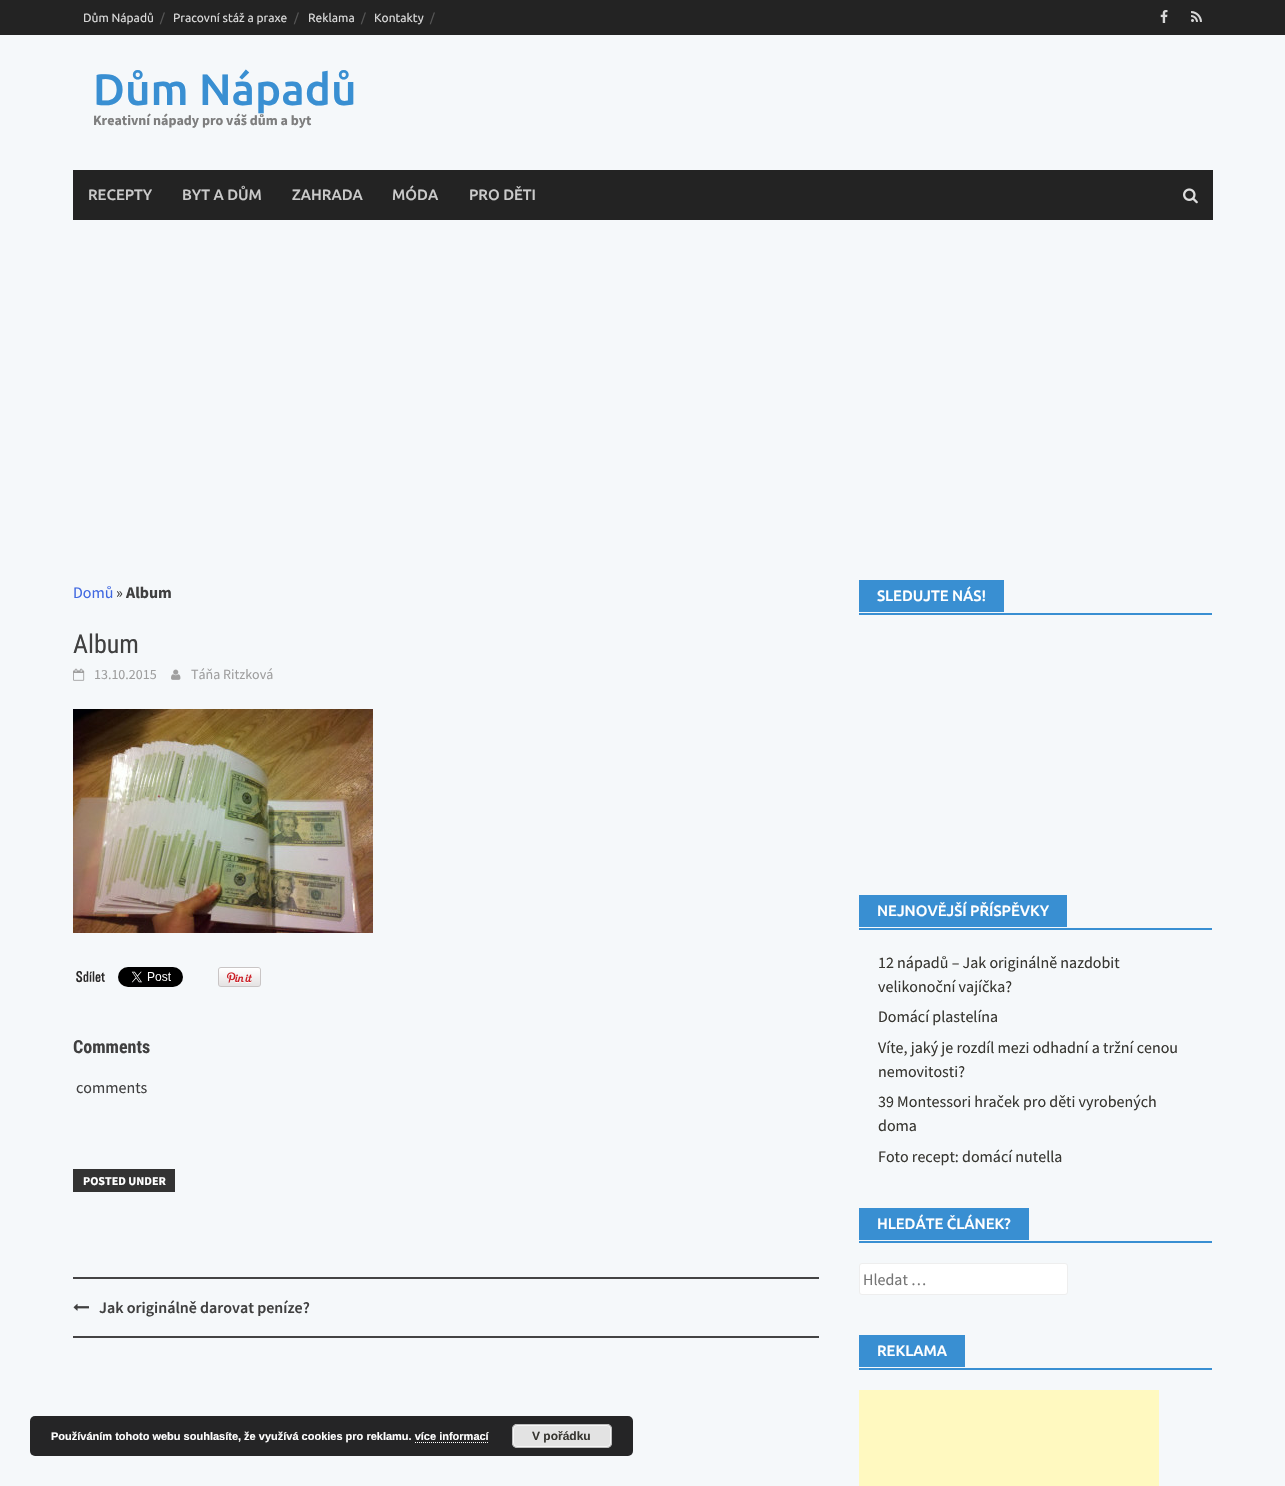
void draw(SkCanvas* c) {
SkPaint p;
p.setAntiAlias(true);
auto F=[&](const char* family, int weight, float size, bool italic = false){SkFontStyle style(weight, SkFontStyle::kNormal_Width,italic ? SkFontStyle::kItalic_Slant : SkFontStyle::kUpright_Slant);SkFont result(fontMgr->matchFamilyStyle(family, style), size);result.setSubpixel(true);return result;};
auto T=[&](const char* s, float x, float y, const SkFont& font){c->drawString(s, x, y, font, p);};
auto R=[&](float x, float y, float w, float h){c->drawRect(SkRect::MakeXYWH(x, y, w, h), p);};
auto Q=[&](float x, float y, float w, float h, float radius){c->drawRoundRect(SkRect::MakeXYWH(x, y, w, h), radius, radius, p);};
auto I=[&](const char* path, float x, float y, float w, float h){auto image = SkImages::DeferredFromEncodedData(SkData::MakeFromFileName(path));c->drawImageRect(image, SkRect::MakeXYWH(x, y, w, h), SkSamplingOptions());};
auto P=[&](const char* data, bool evenOdd = false){SkPath result = *SkParsePath::FromSVGString(data);if (evenOdd) result.setFillType(SkPathFillType::kEvenOdd);return result;};
c->clear(0xfff5f8fa);
p.setColor(0xff232323);
R(0,0,1285,35);
auto f1 = F("Ubuntu",400,12);
p.setColor(0xffd7d7d7);
T("Dům Nápadů",83,22,f1);
p.setColor(0xff555555);
T("/",160,22,f1);
p.setColor(0xffd7d7d7);
T("Pracovní stáž a praxe",173,22,f1);
p.setColor(0xff555555);
T("/",294,22,f1);
p.setColor(0xffd7d7d7);
T("Reklama",308,22,f1);
p.setColor(0xff555555);
T("/",361,22,f1);
p.setColor(0xffd7d7d7);
T("Kontakty",374,22,f1);
p.setColor(0xff555555);
T("/",430,22,f1);
I("1.png",1160,10,8,13);
I("2.png",1191,11,11,11);
auto f2 = F("Ubuntu",500,44);
p.setColor(0xff398fd2);
T("Dům Nápadů",93,105,f2);
auto f3 = F("Source Sans Pro",700,14);
p.setColor(0xff7e7e7e);
T("Kreativní nápady pro váš dům a byt",93,125,f3);
p.setColor(0xff232323);
R(73,170,1140,50);
auto f4 = F("Ubuntu",500,15);
p.setColor(0xffcacaca);
T("RECEPTY",88,200,f4);
T("BYT A DŮM",182,200,f4);
T("ZAHRADA",292,200,f4);
T("MÓDA",392,200,f4);
T("PRO DĚTI",469,200,f4);
I("3.png",1183,188,15,16);
auto f5 = F("Source Sans Pro",400,16);
p.setColor(0xff4169e1);
T("Domů",73,598,f5);
p.setColor(0xff404040);
T("»",116,598,f5);
auto f6 = F("Source Sans Pro",700,16);
T("Album",126,598,f6);
auto f7 = F("Roboto Condensed",400,26);
T("Album",73,653,f7);
I("4.png",73,668,12,13);
auto f8 = F("Source Sans Pro",400,14);
p.setColor(0xff9f9f9f);
T("13.10.2015",94,679,f8);
I("5.png",171,669,10,11);
T("Táňa Ritzková",191,679,f8);
I("6.png",73,709,300,224);
I("7.png",76,971,29,12);
I("8.png",118,967,65,20);
I("9.png",218,967,43,20);
auto f9 = F("Roboto Condensed",700,18);
p.setColor(0xff404040);
T("Comments",73,1053,f9);
T("comments",76,1093,f5);
p.setColor(0xff333333);
R(73,1169,102,23);
auto f10 = F("Source Sans Pro",700,12);
p.setColor(0xffffffff);
T("POSTED UNDER",83,1185,f10);
p.setColor(0xff444444);
R(73,1277,746,2);
R(73,1336,746,2);
I("10.png",73,1303,16,8);
auto f11 = F("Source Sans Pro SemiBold",600,16);
p.setColor(0xff404040);
T("Jak originálně darovat peníze?",99,1313,f11);
p.setColor(0xff398fd2);
R(859,613,353,2);
R(859,580,145,32);
p.setColor(0xffffffff);
T("SLEDUJTE NÁS!",877,601,f4);
p.setColor(0xff398fd2);
R(859,928,353,2);
R(859,895,208,32);
p.setColor(0xffffffff);
T("NEJNOVĚJŠÍ PŘÍSPĚVKY",877,916,f4);
p.setColor(0xff383732);
T("12 nápadů – Jak originálně nazdobit",878,968,f5);
T("velikonoční vajíčka?",878,992,f5);
T("Domácí plastelína",878,1022,f5);
T("Víte, jaký je rozdíl mezi odhadní a tržní cenou",878,1053,f5);
T("nemovitosti?",878,1077,f5);
T("39 Montessori hraček pro děti vyrobených",878,1107,f5);
T("doma",878,1131,f5);
T("Foto recept: domácí nutella",878,1162,f5);
p.setColor(0xff398fd2);
R(859,1241,353,2);
R(859,1208,170,32);
p.setColor(0xffffffff);
T("HLEDÁTE ČLÁNEK?",877,1229,f4);
c->drawRoundRect(SkRect::MakeXYWH(859.5,1263.5,208,31),2.5,2.5,p);
p.setStroke(true);
p.setStrokeWidth(1);
p.setColor(0xffeeeeee);
c->drawRoundRect(SkRect::MakeXYWH(859.5,1263.5,208,31),2.5,2.5,p);
p.setStroke(false);
p.setColor(0xff757575);
T("Hledat …",863,1285,f5);
p.setColor(0xff398fd2);
R(859,1368,353,2);
R(859,1335,106,32);
p.setColor(0xffffffff);
T("REKLAMA",877,1356,f4);
p.setColor(0xfffff9c0);
R(859,1390,300,96);
p.setColor(0xff252526);
Q(30,1416,603,40,5);
auto f12 = F("Liberation Sans",700,11);
p.setColor(0xffffffff);
T("Používáním tohoto webu souhlasíte, že využívá cookies pro reklamu. více informací",51,1440,f12);
p.setColor(0xffe3e3e3);
Q(512,1424,100,24,5);
p.setStroke(true);
p.setColor(0xfff6f6f6);
c->drawRoundRect(SkRect::MakeXYWH(513.5,1425.5,97,21),3.5,3.5,p);
p.setColor(0xffbbbbbb);
c->drawRoundRect(SkRect::MakeXYWH(512.5,1424.5,99,23),4.5,4.5,p);
auto f13 = F("Liberation Sans",700,12);
p.setStroke(false);
p.setColor(0xff383732);
T("V pořádku",532,1440,f13);
p.setStroke(true);
p.setColor(0xffffffff);
p.setPathEffect(SkDashPathEffect::Make({{1,1}}, 0));
c->drawPath(P("M415 1442.5h74"),p);
p.setPathEffect(nullptr);
}
